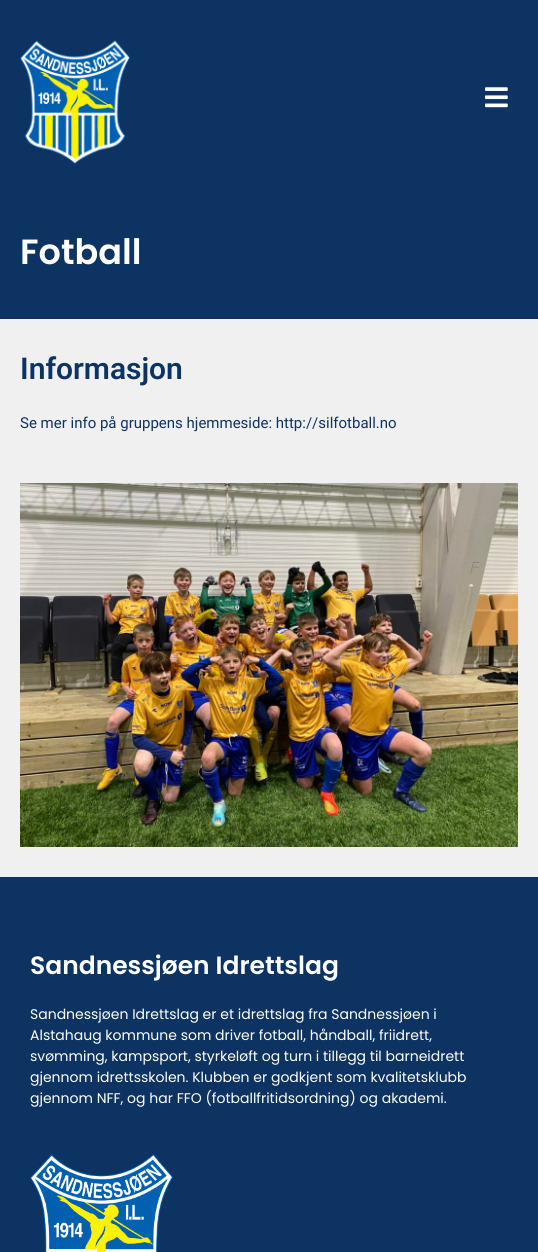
#include <cairo.h>
#include <math.h>
#include <stddef.h>


static void rgb(cairo_t *cr, int r, int g, int b)
{
	cairo_set_source_rgb(cr, r / 255.0, g / 255.0, b / 255.0);
}

static void face(cairo_t *cr, const char *family, double size, int italic, int bold)
{
	cairo_select_font_face(cr, family, italic ? CAIRO_FONT_SLANT_ITALIC : CAIRO_FONT_SLANT_NORMAL,
		bold ? CAIRO_FONT_WEIGHT_BOLD : CAIRO_FONT_WEIGHT_NORMAL);
	cairo_set_font_size(cr, size);
}

static void label(cairo_t *cr, double x, double y, const char *s)
{
	cairo_move_to(cr, x, y);
	cairo_show_text(cr, s);
}

static void rect(cairo_t *cr, double x, double y, double w, double h)
{
	cairo_rectangle(cr, x, y, w, h);
	cairo_fill(cr);
}

static void image(cairo_t *cr, const char *path, double x, double y, double w, double h)
{
	cairo_surface_t *image = cairo_image_surface_create_from_png(path);
	cairo_save(cr);
	cairo_set_source_surface(cr, image, x, y);
	cairo_rectangle(cr, x, y, w, h);
	cairo_fill(cr);
	cairo_restore(cr);
	cairo_surface_destroy(image);
}

static void draw(cairo_t *cr) {
	rgb(cr, 240, 240, 240);
	cairo_paint(cr);
	rgb(cr, 13, 51, 99);
	rect(cr, 0, 0, 538, 319);
	image(cr, "image0.png", 20, 40, 110, 124);
	image(cr, "image1.png", 485, 87, 23, 21);
	face(cr, "Poppins SemiBold", 35, 0, 0);
	rgb(cr, 255, 255, 255);
	label(cr, 20, 264, "Fotball");
	face(cr, "Roboto SemiBold", 30, 0, 0);
	rgb(cr, 13, 51, 99);
	label(cr, 20, 379, "Informasjon");
	face(cr, "Roboto", 15, 0, 0);
	label(cr, 20, 428, "Se mer info på gruppens hjemmeside: http://silfotball.no");
	image(cr, "image2.png", 20, 483, 498, 364);
	rect(cr, 0, 877, 538, 375);
	face(cr, "Poppins SemiBold", 25, 0, 0);
	rgb(cr, 255, 255, 255);
	label(cr, 30, 974, "Sandnessjøen Idrettslag");
	face(cr, "Poppins", 14, 0, 0);
	label(cr, 30, 1019, "Sandnessjøen Idrettslag er et idrettslag fra Sandnessjøen i");
	label(cr, 30, 1040, "Alstahaug kommune som driver fotball, håndball, friidrett,");
	label(cr, 30, 1061, "svømming, kampsport, styrkeløft og turn i tillegg til barneidrett");
	label(cr, 30, 1082, "gjennom idrettsskolen. Klubben er godkjent som kvalitetsklubb");
	label(cr, 30, 1103, "gjennom NFF, og har FFO (fotballfritidsordning) og akademi.");
	image(cr, "image3.png", 30, 1154, 143, 98);
}

int main(void) {
	cairo_surface_t *surface = cairo_image_surface_create(CAIRO_FORMAT_RGB24, 538, 1252);
	cairo_t *cr = cairo_create(surface);
	cairo_font_options_t *options = cairo_font_options_create();
	cairo_font_options_set_hint_metrics(options, CAIRO_HINT_METRICS_OFF);
	cairo_font_options_set_hint_style(options, CAIRO_HINT_STYLE_NONE);
	cairo_set_font_options(cr, options);
	cairo_set_miter_limit(cr, 4);
	draw(cr);
	cairo_surface_write_to_png(surface, "render.png");
	cairo_font_options_destroy(options);
	cairo_destroy(cr);
	cairo_surface_destroy(surface);
	return 0;
}
